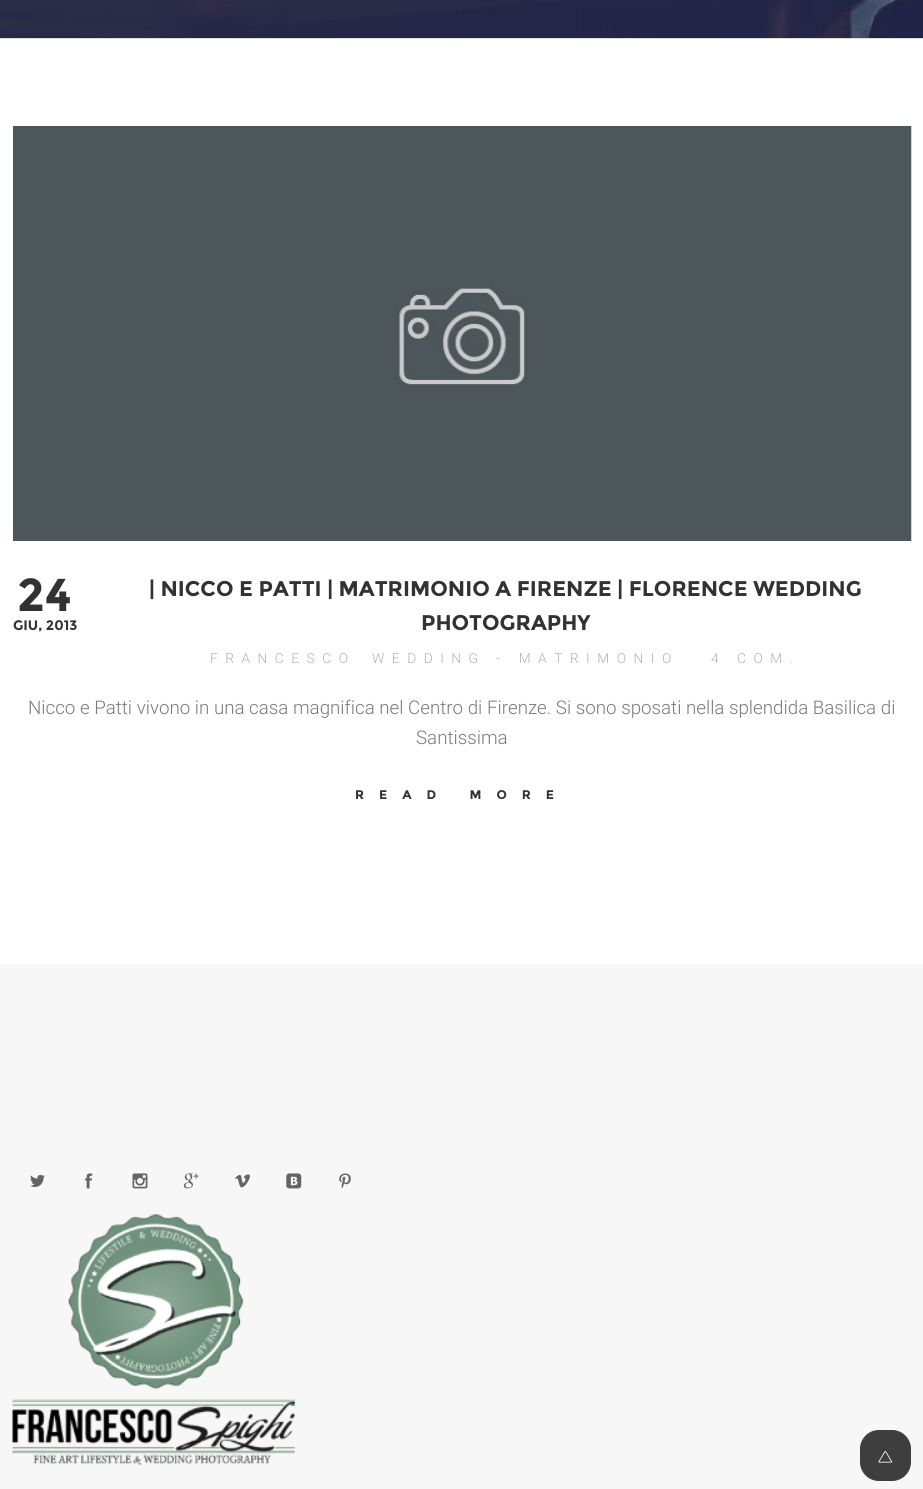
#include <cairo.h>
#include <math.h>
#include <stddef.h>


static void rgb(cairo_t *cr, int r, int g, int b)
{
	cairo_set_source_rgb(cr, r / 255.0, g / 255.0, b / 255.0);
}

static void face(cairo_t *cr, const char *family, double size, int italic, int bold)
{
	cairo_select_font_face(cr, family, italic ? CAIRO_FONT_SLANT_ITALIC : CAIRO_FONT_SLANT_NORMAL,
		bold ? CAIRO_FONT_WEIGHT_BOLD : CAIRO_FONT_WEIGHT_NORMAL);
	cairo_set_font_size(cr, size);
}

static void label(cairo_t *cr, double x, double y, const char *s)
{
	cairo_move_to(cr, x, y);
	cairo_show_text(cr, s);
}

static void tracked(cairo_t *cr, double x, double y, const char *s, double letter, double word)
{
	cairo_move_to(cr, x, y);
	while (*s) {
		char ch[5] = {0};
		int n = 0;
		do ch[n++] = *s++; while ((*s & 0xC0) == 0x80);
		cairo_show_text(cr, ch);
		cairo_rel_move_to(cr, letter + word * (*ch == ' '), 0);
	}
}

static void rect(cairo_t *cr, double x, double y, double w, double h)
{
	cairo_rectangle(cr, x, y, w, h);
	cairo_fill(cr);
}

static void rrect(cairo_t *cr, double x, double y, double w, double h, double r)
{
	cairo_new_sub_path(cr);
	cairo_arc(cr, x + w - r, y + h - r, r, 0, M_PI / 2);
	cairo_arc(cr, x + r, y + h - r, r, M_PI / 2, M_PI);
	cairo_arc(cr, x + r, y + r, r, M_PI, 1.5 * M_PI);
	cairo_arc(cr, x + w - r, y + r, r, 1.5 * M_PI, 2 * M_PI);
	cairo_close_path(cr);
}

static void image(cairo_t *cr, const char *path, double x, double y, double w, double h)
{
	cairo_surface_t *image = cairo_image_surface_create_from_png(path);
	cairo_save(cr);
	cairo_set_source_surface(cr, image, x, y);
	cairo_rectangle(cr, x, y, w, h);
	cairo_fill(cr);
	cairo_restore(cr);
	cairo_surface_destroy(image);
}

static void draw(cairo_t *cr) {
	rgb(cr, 255, 255, 255);
	cairo_paint(cr);
	image(cr, "image0.png", 0, 0, 923, 38);
	rgb(cr, 221, 221, 221);
	rect(cr, 0, 38, 923, 1);
	image(cr, "image1.png", 13, 126, 899, 415);
	face(cr, "Montserrat", 46, 0, 1);
	rgb(cr, 50, 50, 50);
	label(cr, 17, 611, "24");
	face(cr, "Montserrat", 13.75, 0, 1);
	label(cr, 13, 630, "GIU, 2013");
	face(cr, "Montserrat", 21.25, 0, 1);
	label(cr, 149, 596, "| NICCO E PATTI | MATRIMONIO A FIRENZE | FLORENCE WEDDING");
	label(cr, 421, 630, "PHOTOGRAPHY");
	face(cr, "Roboto Light", 13.75, 0, 0);
	rgb(cr, 178, 178, 178);
	tracked(cr, 210, 663, "FRANCESCO", 7.5, 0);
	tracked(cr, 372, 663, "WEDDING - MATRIMONIO", 7.5, 0);
	tracked(cr, 711, 663, "4 COM.", 7.5, 0);
	face(cr, "Roboto Light", 18.75, 0, 0);
	rgb(cr, 122, 122, 122);
	label(cr, 28, 714, "Nicco e Patti vivono in una casa magnifica nel Centro di Firenze. Si sono sposati nella splendida Basilica di");
	label(cr, 416, 744, "Santissima");
	face(cr, "Montserrat", 12.5, 0, 1);
	rgb(cr, 50, 50, 50);
	tracked(cr, 355, 799, "READ MORE", 15, 0);
	rgb(cr, 247, 247, 247);
	rect(cr, 0, 964, 923, 525);
	image(cr, "image2.png", 30, 1174, 15, 13);
	image(cr, "image3.png", 85, 1173, 8, 16);
	image(cr, "image4.png", 132, 1173, 16, 16);
	image(cr, "image5.png", 183, 1173, 16, 16);
	image(cr, "image6.png", 235, 1174, 15, 14);
	image(cr, "image7.png", 286, 1173, 16, 16);
	image(cr, "image8.png", 339, 1173, 12, 16);
	image(cr, "image9.png", 12, 1214, 283, 251);
	rgb(cr, 62, 62, 62);
	rrect(cr, 860.5, 1430.5, 50, 50, 18.5);
	cairo_fill_preserve(cr);
	cairo_set_line_width(cr, 1);
	cairo_stroke(cr);
	image(cr, "image10.png", 878, 1451, 15, 12);
}

int main(void) {
	cairo_surface_t *surface = cairo_image_surface_create(CAIRO_FORMAT_RGB24, 923, 1489);
	cairo_t *cr = cairo_create(surface);
	cairo_font_options_t *options = cairo_font_options_create();
	cairo_font_options_set_hint_metrics(options, CAIRO_HINT_METRICS_OFF);
	cairo_font_options_set_hint_style(options, CAIRO_HINT_STYLE_NONE);
	cairo_set_font_options(cr, options);
	cairo_set_miter_limit(cr, 4);
	draw(cr);
	cairo_surface_write_to_png(surface, "render.png");
	cairo_font_options_destroy(options);
	cairo_destroy(cr);
	cairo_surface_destroy(surface);
	return 0;
}
